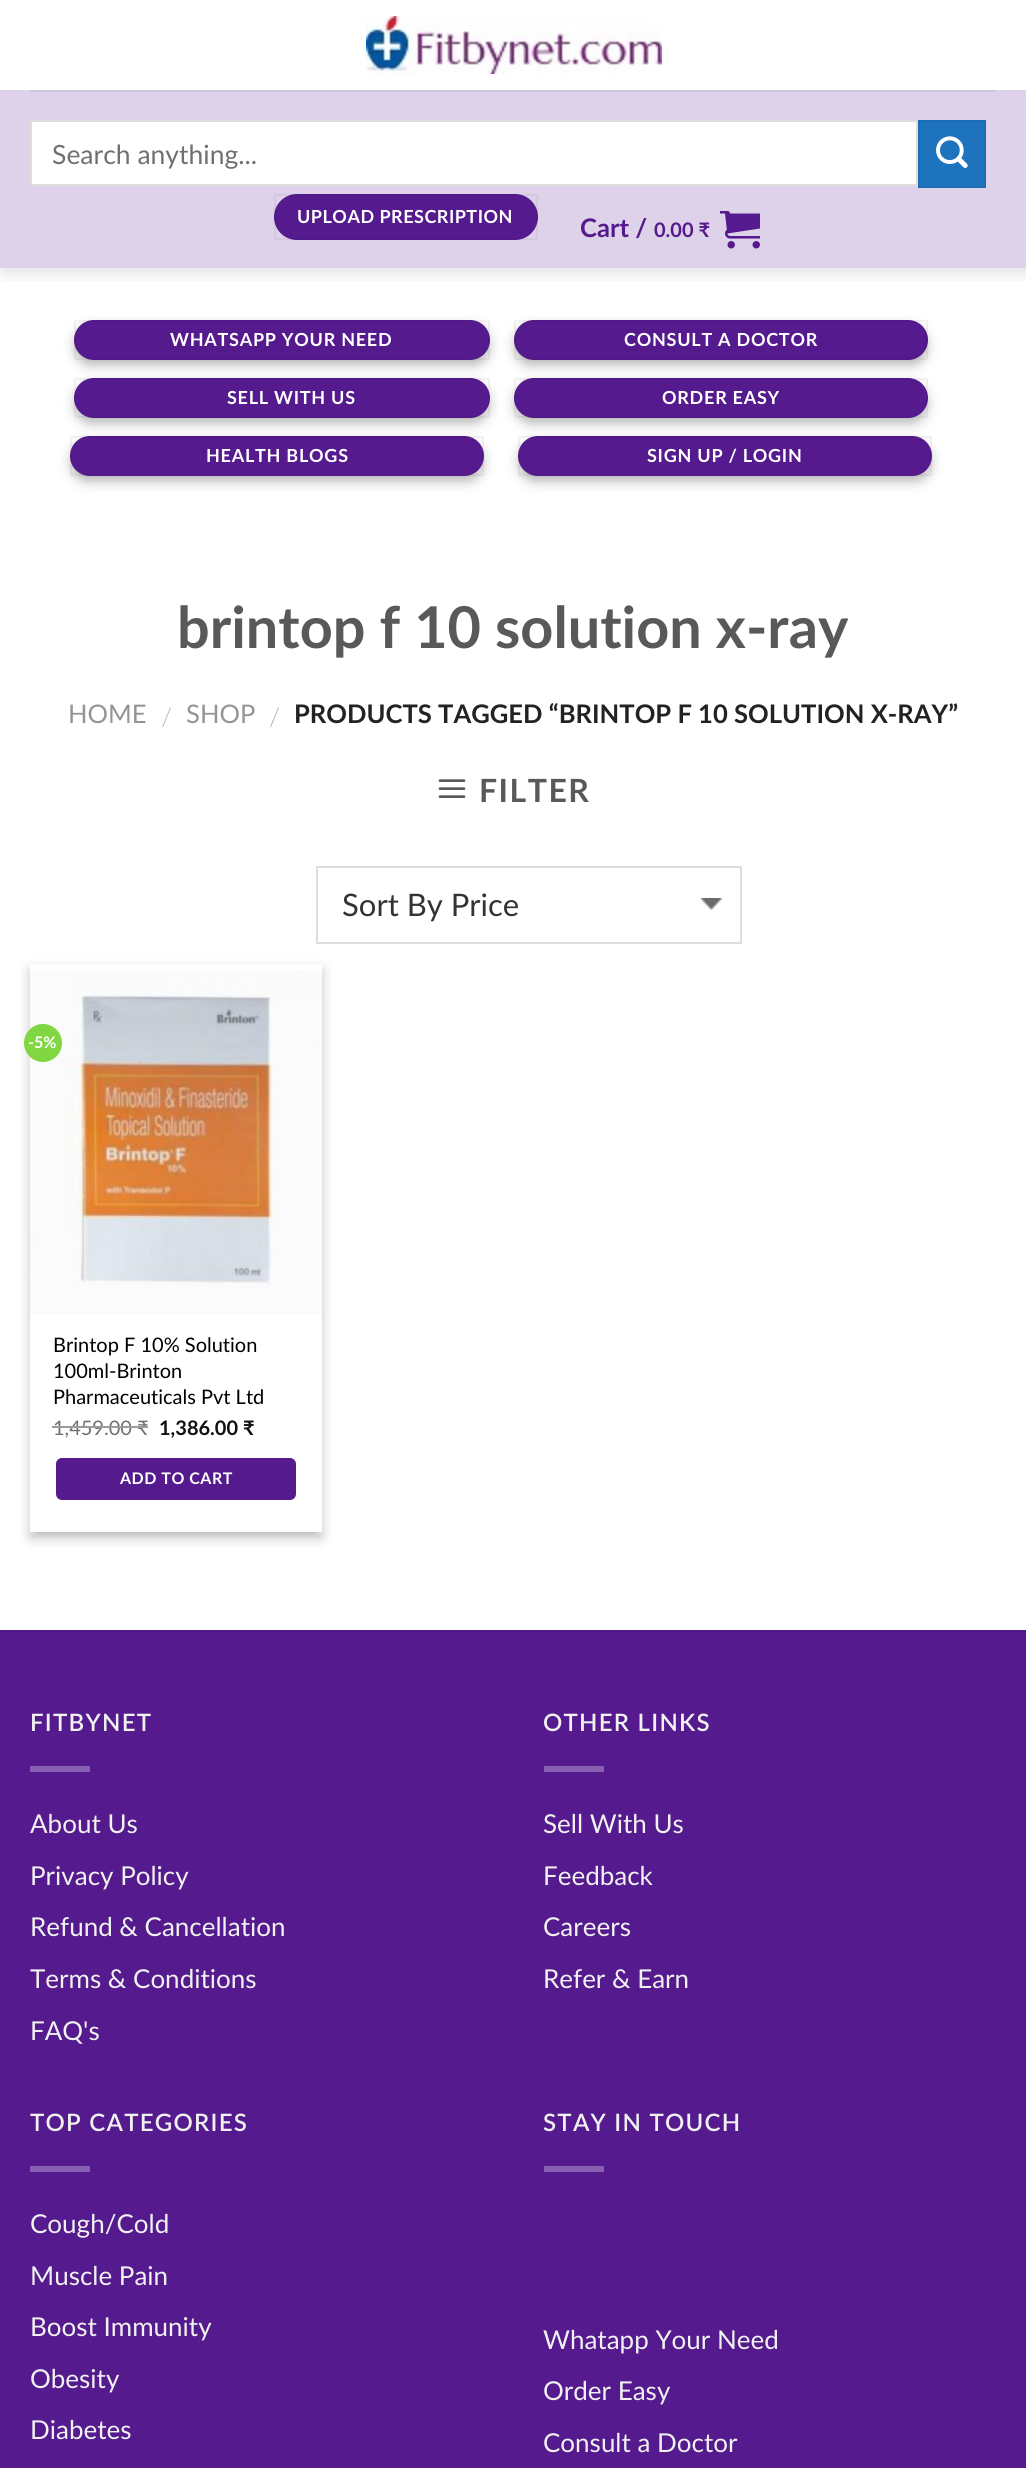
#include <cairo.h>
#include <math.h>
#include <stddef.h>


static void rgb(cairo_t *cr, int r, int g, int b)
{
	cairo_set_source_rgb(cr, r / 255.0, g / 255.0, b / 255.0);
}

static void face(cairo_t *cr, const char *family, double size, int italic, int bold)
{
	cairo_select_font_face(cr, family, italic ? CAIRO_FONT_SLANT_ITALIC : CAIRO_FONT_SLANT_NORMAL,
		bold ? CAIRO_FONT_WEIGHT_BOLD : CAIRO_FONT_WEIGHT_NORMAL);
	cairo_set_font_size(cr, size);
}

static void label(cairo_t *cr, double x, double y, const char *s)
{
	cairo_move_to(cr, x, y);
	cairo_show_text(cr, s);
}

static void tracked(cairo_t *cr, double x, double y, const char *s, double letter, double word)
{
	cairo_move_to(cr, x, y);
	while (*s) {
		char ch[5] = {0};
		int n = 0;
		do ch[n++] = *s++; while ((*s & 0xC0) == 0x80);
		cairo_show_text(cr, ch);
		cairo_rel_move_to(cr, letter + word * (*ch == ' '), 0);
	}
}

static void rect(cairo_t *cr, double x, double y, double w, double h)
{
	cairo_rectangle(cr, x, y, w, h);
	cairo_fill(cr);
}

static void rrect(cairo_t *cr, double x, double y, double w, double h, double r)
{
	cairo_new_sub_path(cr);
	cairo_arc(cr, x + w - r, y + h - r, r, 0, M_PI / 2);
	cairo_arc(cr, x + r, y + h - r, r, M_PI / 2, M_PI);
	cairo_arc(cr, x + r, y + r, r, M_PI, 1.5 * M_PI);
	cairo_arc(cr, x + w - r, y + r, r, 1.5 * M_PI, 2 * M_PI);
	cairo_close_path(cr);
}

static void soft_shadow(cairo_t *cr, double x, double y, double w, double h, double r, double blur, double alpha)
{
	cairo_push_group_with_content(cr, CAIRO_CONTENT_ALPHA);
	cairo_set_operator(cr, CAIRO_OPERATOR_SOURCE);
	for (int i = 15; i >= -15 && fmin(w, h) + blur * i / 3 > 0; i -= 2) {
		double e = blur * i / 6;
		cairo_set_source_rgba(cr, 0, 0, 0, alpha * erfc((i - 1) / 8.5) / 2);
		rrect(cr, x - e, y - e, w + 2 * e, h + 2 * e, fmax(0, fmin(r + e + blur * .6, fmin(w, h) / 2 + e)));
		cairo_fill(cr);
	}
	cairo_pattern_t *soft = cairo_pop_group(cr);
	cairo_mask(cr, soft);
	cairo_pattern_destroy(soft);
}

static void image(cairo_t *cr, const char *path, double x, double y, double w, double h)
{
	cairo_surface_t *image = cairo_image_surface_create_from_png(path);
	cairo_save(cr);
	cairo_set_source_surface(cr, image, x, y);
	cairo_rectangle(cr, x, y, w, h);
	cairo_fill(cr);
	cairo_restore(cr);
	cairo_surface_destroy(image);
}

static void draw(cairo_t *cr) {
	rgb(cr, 255, 255, 255);
	cairo_paint(cr);
	cairo_save(cr);
	cairo_rectangle(cr, 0, 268, 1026, 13);
	cairo_clip(cr);
	rgb(cr, 0, 0, 0);
	soft_shadow(cr, 2, 2, 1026, 268, 0, 10, 0.15);
	cairo_restore(cr);
	image(cr, "image0.png", 366, 16, 296, 58);
	rgb(cr, 221, 210, 233);
	rect(cr, 0, 90, 1026, 178);
	rgb(cr, 208, 198, 219);
	rect(cr, 30, 90, 966, 2);
	rgb(cr, 255, 255, 255);
	cairo_rectangle(cr, 31, 121, 886, 64);
	cairo_fill_preserve(cr);
	rgb(cr, 221, 221, 221);
	cairo_stroke(cr);
	face(cr, "Lato", 26.5, 0, 0);
	rgb(cr, 112, 112, 112);
	label(cr, 52, 164, "Search anything...");
	rgb(cr, 30, 115, 190);
	cairo_rectangle(cr, 919, 121, 66, 66);
	cairo_fill_preserve(cr);
	rgb(cr, 29, 109, 181);
	cairo_stroke(cr);
	image(cr, "image1.png", 936, 136, 32, 32);
	rgb(cr, 84, 26, 142);
	rrect(cr, 274, 194, 264, 46, 23);
	cairo_fill(cr);
	cairo_rectangle(cr, 275, 195, 262, 44);
	cairo_set_source_rgba(cr, 0, 0, 0, 0.05);
	cairo_stroke(cr);
	face(cr, "Lato", 18, 0, 1);
	rgb(cr, 255, 255, 255);
	tracked(cr, 297, 223, "UPLOAD PRESCRIPTION", 0.5, 0);
	face(cr, "Lato", 25.6, 0, 1);
	rgb(cr, 84, 26, 142);
	label(cr, 580, 237, "Cart /");
	face(cr, "Lato", 20, 0, 1);
	label(cr, 654, 237, "0.00 ₹");
	image(cr, "image2.png", 720, 211, 40, 38);
	rgb(cr, 0, 0, 0);
	soft_shadow(cr, 74, 326, 416, 40, 20, 6, 0.23);
	soft_shadow(cr, 82, 334, 400, 24, 12, 6, 0.16);
	rgb(cr, 84, 26, 142);
	rrect(cr, 74, 320, 416, 40, 20);
	cairo_fill(cr);
	cairo_rectangle(cr, 75, 321, 414, 38);
	cairo_set_source_rgba(cr, 0, 0, 0, 0.05);
	cairo_stroke(cr);
	face(cr, "Lato", 18, 0, 1);
	rgb(cr, 255, 255, 255);
	tracked(cr, 170, 346, "WHATSAPP YOUR NEED", 0.75, 0);
	rgb(cr, 0, 0, 0);
	soft_shadow(cr, 514, 326, 414, 40, 20, 6, 0.23);
	soft_shadow(cr, 522, 334, 398, 24, 12, 6, 0.16);
	rgb(cr, 84, 26, 142);
	rrect(cr, 514, 320, 414, 40, 20);
	cairo_fill(cr);
	cairo_rectangle(cr, 515, 321, 412, 38);
	cairo_set_source_rgba(cr, 0, 0, 0, 0.05);
	cairo_stroke(cr);
	rgb(cr, 255, 255, 255);
	tracked(cr, 624, 346, "CONSULT A DOCTOR", 0.75, 0);
	rgb(cr, 0, 0, 0);
	soft_shadow(cr, 74, 384, 416, 40, 20, 6, 0.23);
	soft_shadow(cr, 82, 392, 400, 24, 12, 6, 0.16);
	rgb(cr, 84, 26, 142);
	rrect(cr, 74, 378, 416, 40, 20);
	cairo_fill(cr);
	cairo_rectangle(cr, 75, 379, 414, 38);
	cairo_set_source_rgba(cr, 0, 0, 0, 0.05);
	cairo_stroke(cr);
	rgb(cr, 255, 255, 255);
	tracked(cr, 227, 404, "SELL WITH US", 0.75, 0);
	rgb(cr, 0, 0, 0);
	soft_shadow(cr, 514, 384, 414, 40, 20, 6, 0.23);
	soft_shadow(cr, 522, 392, 398, 24, 12, 6, 0.16);
	rgb(cr, 84, 26, 142);
	rrect(cr, 514, 378, 414, 40, 20);
	cairo_fill(cr);
	cairo_rectangle(cr, 515, 379, 412, 38);
	cairo_set_source_rgba(cr, 0, 0, 0, 0.05);
	cairo_stroke(cr);
	rgb(cr, 255, 255, 255);
	tracked(cr, 662, 404, "ORDER EASY", 0.75, 0);
	rgb(cr, 0, 0, 0);
	soft_shadow(cr, 70, 442, 414, 40, 20, 6, 0.23);
	soft_shadow(cr, 78, 450, 398, 24, 12, 6, 0.16);
	rgb(cr, 84, 26, 142);
	rrect(cr, 70, 436, 414, 40, 20);
	cairo_fill(cr);
	cairo_rectangle(cr, 71, 437, 412, 38);
	cairo_set_source_rgba(cr, 0, 0, 0, 0.05);
	cairo_stroke(cr);
	rgb(cr, 255, 255, 255);
	tracked(cr, 206, 462, "HEALTH BLOGS", 0.75, 0);
	rgb(cr, 0, 0, 0);
	soft_shadow(cr, 518, 442, 414, 40, 20, 6, 0.23);
	soft_shadow(cr, 526, 450, 398, 24, 12, 6, 0.16);
	rgb(cr, 84, 26, 142);
	rrect(cr, 518, 436, 414, 40, 20);
	cairo_fill(cr);
	cairo_rectangle(cr, 519, 437, 412, 38);
	cairo_set_source_rgba(cr, 0, 0, 0, 0.05);
	cairo_stroke(cr);
	rgb(cr, 255, 255, 255);
	tracked(cr, 647, 462, "SIGN UP / LOGIN", 0.75, 0);
	face(cr, "Lato", 57.6, 0, 1);
	rgb(cr, 89, 89, 89);
	label(cr, 177, 648, "brintop f 10 solution x-ray");
	face(cr, "Lato", 25.6, 0, 0);
	rgb(cr, 148, 148, 148);
	label(cr, 68, 723, "HOME");
	face(cr, "Lato Light", 25.6, 0, 0);
	rgb(cr, 178, 178, 178);
	label(cr, 161, 726, "/");
	face(cr, "Lato", 25.6, 0, 0);
	rgb(cr, 148, 148, 148);
	label(cr, 186, 723, "SHOP");
	face(cr, "Lato Light", 25.6, 0, 0);
	rgb(cr, 178, 178, 178);
	label(cr, 269, 726, "/");
	face(cr, "Lato", 25.6, 0, 1);
	rgb(cr, 34, 34, 34);
	label(cr, 294, 723, "PRODUCTS TAGGED “BRINTOP F 10 SOLUTION X-RAY”");
	image(cr, "image3.png", 438, 779, 28, 19);
	face(cr, "Lato", 32, 0, 1);
	rgb(cr, 89, 89, 89);
	tracked(cr, 479, 802, "FILTER", 1.5, 0);
	image(cr, "image4.png", 700, 898, 23, 12);
	cairo_rectangle(cr, 317, 867, 424, 76);
	rgb(cr, 221, 221, 221);
	cairo_stroke(cr);
	face(cr, "Lato", 31, 0, 0);
	rgb(cr, 51, 51, 51);
	label(cr, 342, 916, "Sort By Price");
	cairo_save(cr);
	cairo_set_fill_rule(cr, CAIRO_FILL_RULE_EVEN_ODD);
	cairo_new_path(cr);
	cairo_move_to(cr, 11, 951);
	cairo_line_to(cr, 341, 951);
	cairo_line_to(cr, 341, 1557);
	cairo_line_to(cr, 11, 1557);
	cairo_close_path(cr);
	cairo_move_to(cr, 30, 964);
	cairo_line_to(cr, 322, 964);
	cairo_line_to(cr, 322, 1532);
	cairo_line_to(cr, 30, 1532);
	cairo_close_path(cr);
	cairo_clip(cr);
	rgb(cr, 0, 0, 0);
	soft_shadow(cr, 30, 970, 292, 568, 0, 6, 0.23);
	cairo_restore(cr);
	cairo_save(cr);
	cairo_rectangle(cr, 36, 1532, 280, 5);
	cairo_clip(cr);
	rgb(cr, 0, 0, 0);
	soft_shadow(cr, 38, 978, 276, 552, 0, 6, 0.16);
	cairo_restore(cr);
	image(cr, "image5.png", 30, 971, 292, 343);
	rgb(cr, 129, 215, 66);
	cairo_arc(cr, 43, 1043, 19, 0, 2 * M_PI);
	cairo_fill(cr);
	face(cr, "Lato", 16, 0, 1);
	rgb(cr, 255, 255, 255);
	label(cr, 28, 1048, "-5%");
	face(cr, "Lato", 20, 0, 0);
	rgb(cr, 0, 0, 0);
	label(cr, 53, 1352, "Brintop F 10% Solution");
	label(cr, 53, 1378, "100ml-Brinton");
	label(cr, 53, 1404, "Pharmaceuticals Pvt Ltd");
	rgb(cr, 112, 112, 112);
	label(cr, 53, 1435, "1,459.00 ₹");
	rgb(cr, 155, 155, 155);
	rect(cr, 52, 1426, 96, 2);
	face(cr, "Lato", 20, 0, 1);
	rgb(cr, 17, 17, 17);
	label(cr, 159, 1435, "1,386.00 ₹");
	rgb(cr, 84, 26, 142);
	rrect(cr, 54, 1456, 244, 46, 8);
	cairo_fill_preserve(cr);
	rgb(cr, 255, 255, 255);
	cairo_set_line_width(cr, 4);
	cairo_stroke(cr);
	face(cr, "Lato", 16, 0, 1);
	tracked(cr, 120, 1484, "ADD TO CART", 0.5, 0);
	rgb(cr, 84, 26, 142);
	rect(cr, 0, 1632, 1026, 836);
	rgb(cr, 80, 25, 135);
	rect(cr, 0, 1630, 1026, 2);
	face(cr, "Lato SemiBold", 24, 0, 0);
	rgb(cr, 241, 241, 241);
	tracked(cr, 30, 1731, "FITBYNET", 1.25, 0);
	rgb(cr, 135, 95, 176);
	rect(cr, 30, 1766, 60, 6);
	face(cr, "Lato", 26, 0, 0);
	rgb(cr, 241, 241, 241);
	label(cr, 30, 1833, "About Us");
	label(cr, 30, 1885, "Privacy Policy");
	label(cr, 30, 1936, "Refund & Cancellation");
	label(cr, 30, 1988, "Terms & Conditions");
	label(cr, 30, 2040, "FAQ's");
	face(cr, "Lato SemiBold", 24, 0, 0);
	tracked(cr, 543, 1731, "OTHER LINKS", 1.25, 0);
	rgb(cr, 135, 95, 176);
	rect(cr, 544, 1766, 60, 6);
	face(cr, "Lato", 26, 0, 0);
	rgb(cr, 241, 241, 241);
	label(cr, 543, 1833, "Sell With Us");
	label(cr, 543, 1885, "Feedback");
	label(cr, 543, 1936, "Careers");
	label(cr, 543, 1988, "Refer & Earn");
	face(cr, "Lato SemiBold", 24, 0, 0);
	tracked(cr, 30, 2131, "TOP CATEGORIES", 1.25, 0);
	rgb(cr, 135, 95, 176);
	rect(cr, 30, 2166, 60, 6);
	face(cr, "Lato", 26, 0, 0);
	rgb(cr, 241, 241, 241);
	label(cr, 30, 2233, "Cough/Cold");
	label(cr, 30, 2285, "Muscle Pain");
	label(cr, 30, 2336, "Boost Immunity");
	label(cr, 30, 2388, "Obesity");
	label(cr, 30, 2439, "Diabetes");
	face(cr, "Lato SemiBold", 24, 0, 0);
	tracked(cr, 543, 2131, "STAY IN TOUCH", 1.25, 0);
	rgb(cr, 135, 95, 176);
	rect(cr, 544, 2166, 60, 6);
	face(cr, "Lato", 26, 0, 0);
	rgb(cr, 241, 241, 241);
	label(cr, 543, 2349, "Whatapp Your Need");
	label(cr, 543, 2400, "Order Easy");
	label(cr, 543, 2452, "Consult a Doctor");
}

int main(void) {
	cairo_surface_t *surface = cairo_image_surface_create(CAIRO_FORMAT_RGB24, 1026, 2468);
	cairo_t *cr = cairo_create(surface);
	cairo_font_options_t *options = cairo_font_options_create();
	cairo_font_options_set_hint_metrics(options, CAIRO_HINT_METRICS_OFF);
	cairo_font_options_set_hint_style(options, CAIRO_HINT_STYLE_NONE);
	cairo_set_font_options(cr, options);
	cairo_set_miter_limit(cr, 4);
	draw(cr);
	cairo_surface_write_to_png(surface, "render.png");
	cairo_font_options_destroy(options);
	cairo_destroy(cr);
	cairo_surface_destroy(surface);
	return 0;
}
